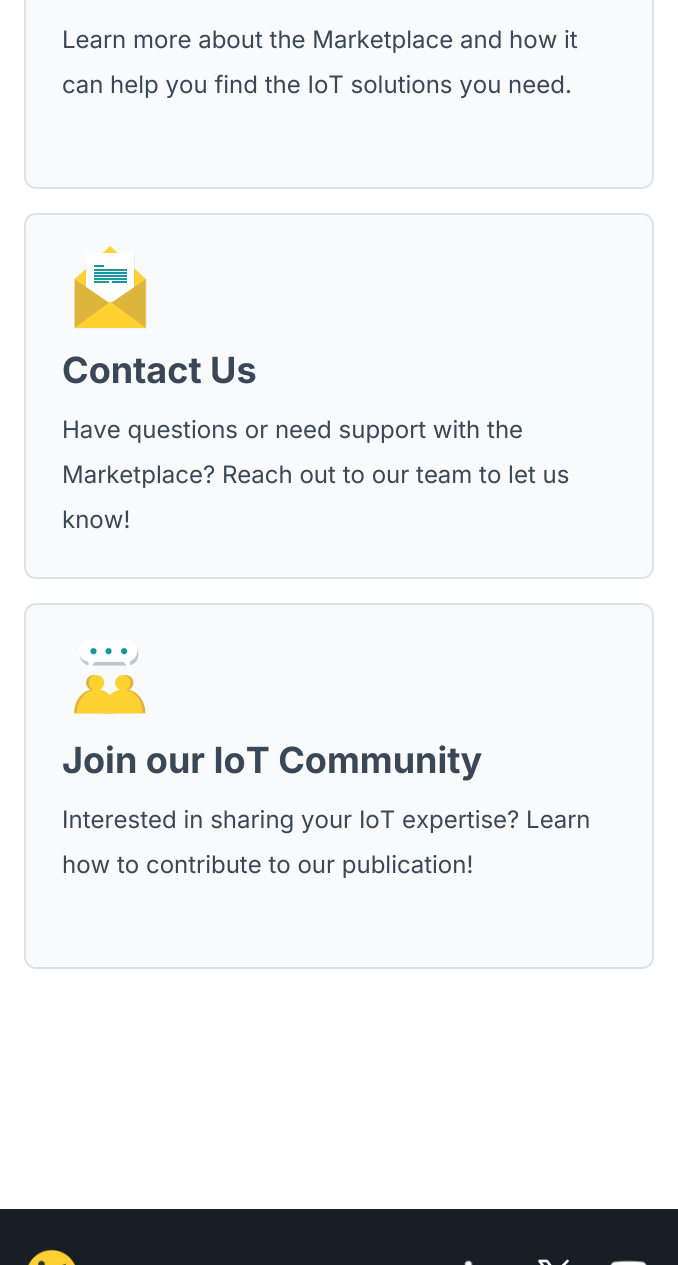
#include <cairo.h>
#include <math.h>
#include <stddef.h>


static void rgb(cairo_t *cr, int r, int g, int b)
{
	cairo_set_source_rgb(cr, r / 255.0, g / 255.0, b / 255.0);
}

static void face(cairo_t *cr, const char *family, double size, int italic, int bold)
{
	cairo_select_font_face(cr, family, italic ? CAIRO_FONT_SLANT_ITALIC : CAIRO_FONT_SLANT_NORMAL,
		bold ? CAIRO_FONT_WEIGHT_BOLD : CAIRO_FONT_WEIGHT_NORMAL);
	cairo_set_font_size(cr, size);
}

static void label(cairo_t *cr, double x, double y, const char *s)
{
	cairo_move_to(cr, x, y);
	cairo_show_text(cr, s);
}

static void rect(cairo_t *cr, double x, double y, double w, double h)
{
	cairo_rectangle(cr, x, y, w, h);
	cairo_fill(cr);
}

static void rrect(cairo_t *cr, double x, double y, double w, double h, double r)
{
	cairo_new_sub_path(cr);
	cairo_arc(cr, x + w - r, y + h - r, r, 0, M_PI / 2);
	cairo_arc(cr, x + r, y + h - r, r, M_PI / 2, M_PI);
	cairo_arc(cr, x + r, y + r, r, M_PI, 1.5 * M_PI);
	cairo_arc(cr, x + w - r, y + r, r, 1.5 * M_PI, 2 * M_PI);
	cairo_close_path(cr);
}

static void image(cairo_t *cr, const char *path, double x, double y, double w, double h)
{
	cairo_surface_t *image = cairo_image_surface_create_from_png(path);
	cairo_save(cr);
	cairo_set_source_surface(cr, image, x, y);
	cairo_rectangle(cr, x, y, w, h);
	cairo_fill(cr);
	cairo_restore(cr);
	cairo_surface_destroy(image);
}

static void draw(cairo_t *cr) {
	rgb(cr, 255, 255, 255);
	cairo_paint(cr);
	rgb(cr, 249, 250, 251);
	rrect(cr, 25, -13, 628, 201, 11);
	cairo_fill_preserve(cr);
	rgb(cr, 222, 226, 230);
	cairo_stroke(cr);
	face(cr, "Inter", 24, 0, 0);
	rgb(cr, 57, 71, 86);
	label(cr, 62, 48, "Learn more about the Marketplace and how it");
	label(cr, 62, 93, "can help you find the IoT solutions you need.");
	rgb(cr, 249, 250, 251);
	rrect(cr, 25, 214, 628, 364, 11);
	cairo_fill_preserve(cr);
	rgb(cr, 222, 226, 230);
	cairo_stroke(cr);
	image(cr, "image0.png", 74, 245, 73, 84);
	face(cr, "Inter", 36, 0, 1);
	rgb(cr, 57, 71, 86);
	label(cr, 62, 383, "Contact Us");
	face(cr, "Inter", 24, 0, 0);
	label(cr, 62, 438, "Have questions or need support with the");
	label(cr, 62, 483, "Marketplace? Reach out to our team to let us");
	label(cr, 62, 528, "know!");
	rgb(cr, 249, 250, 251);
	rrect(cr, 25, 604, 628, 364, 11);
	cairo_fill_preserve(cr);
	rgb(cr, 222, 226, 230);
	cairo_stroke(cr);
	image(cr, "image1.png", 74, 640, 72, 74);
	face(cr, "Inter", 36, 0, 1);
	rgb(cr, 57, 71, 86);
	label(cr, 62, 773, "Join our IoT Community");
	face(cr, "Inter", 24, 0, 0);
	label(cr, 62, 828, "Interested in sharing your IoT expertise? Learn");
	label(cr, 62, 873, "how to contribute to our publication!");
	rgb(cr, 24, 30, 37);
	rect(cr, 0, 1209, 678, 56);
	image(cr, "image2.png", 28, 1249, 47, 16);
	image(cr, "image3.png", 464, 1260, 9, 5);
	cairo_new_path(cr);
	cairo_move_to(cr, 539.5, 1261);
	cairo_line_to(cr, 560, 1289);
	cairo_line_to(cr, 567.5, 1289);
	cairo_line_to(cr, 547, 1261);
	cairo_close_path(cr);
	cairo_move_to(cr, 539.5, 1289);
	cairo_line_to(cr, 551.5, 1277);
	cairo_move_to(cr, 555.5, 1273);
	cairo_line_to(cr, 567.5, 1261);
	rgb(cr, 255, 255, 255);
	cairo_set_line_width(cr, 2.6);
	cairo_set_line_cap(cr, CAIRO_LINE_CAP_ROUND);
	cairo_set_line_join(cr, CAIRO_LINE_JOIN_ROUND);
	cairo_stroke(cr);
	image(cr, "image4.png", 610, 1260, 37, 5);
}

int main(void) {
	cairo_surface_t *surface = cairo_image_surface_create(CAIRO_FORMAT_RGB24, 678, 1265);
	cairo_t *cr = cairo_create(surface);
	cairo_font_options_t *options = cairo_font_options_create();
	cairo_font_options_set_hint_metrics(options, CAIRO_HINT_METRICS_OFF);
	cairo_font_options_set_hint_style(options, CAIRO_HINT_STYLE_NONE);
	cairo_set_font_options(cr, options);
	cairo_set_miter_limit(cr, 4);
	draw(cr);
	cairo_surface_write_to_png(surface, "render.png");
	cairo_font_options_destroy(options);
	cairo_destroy(cr);
	cairo_surface_destroy(surface);
	return 0;
}
